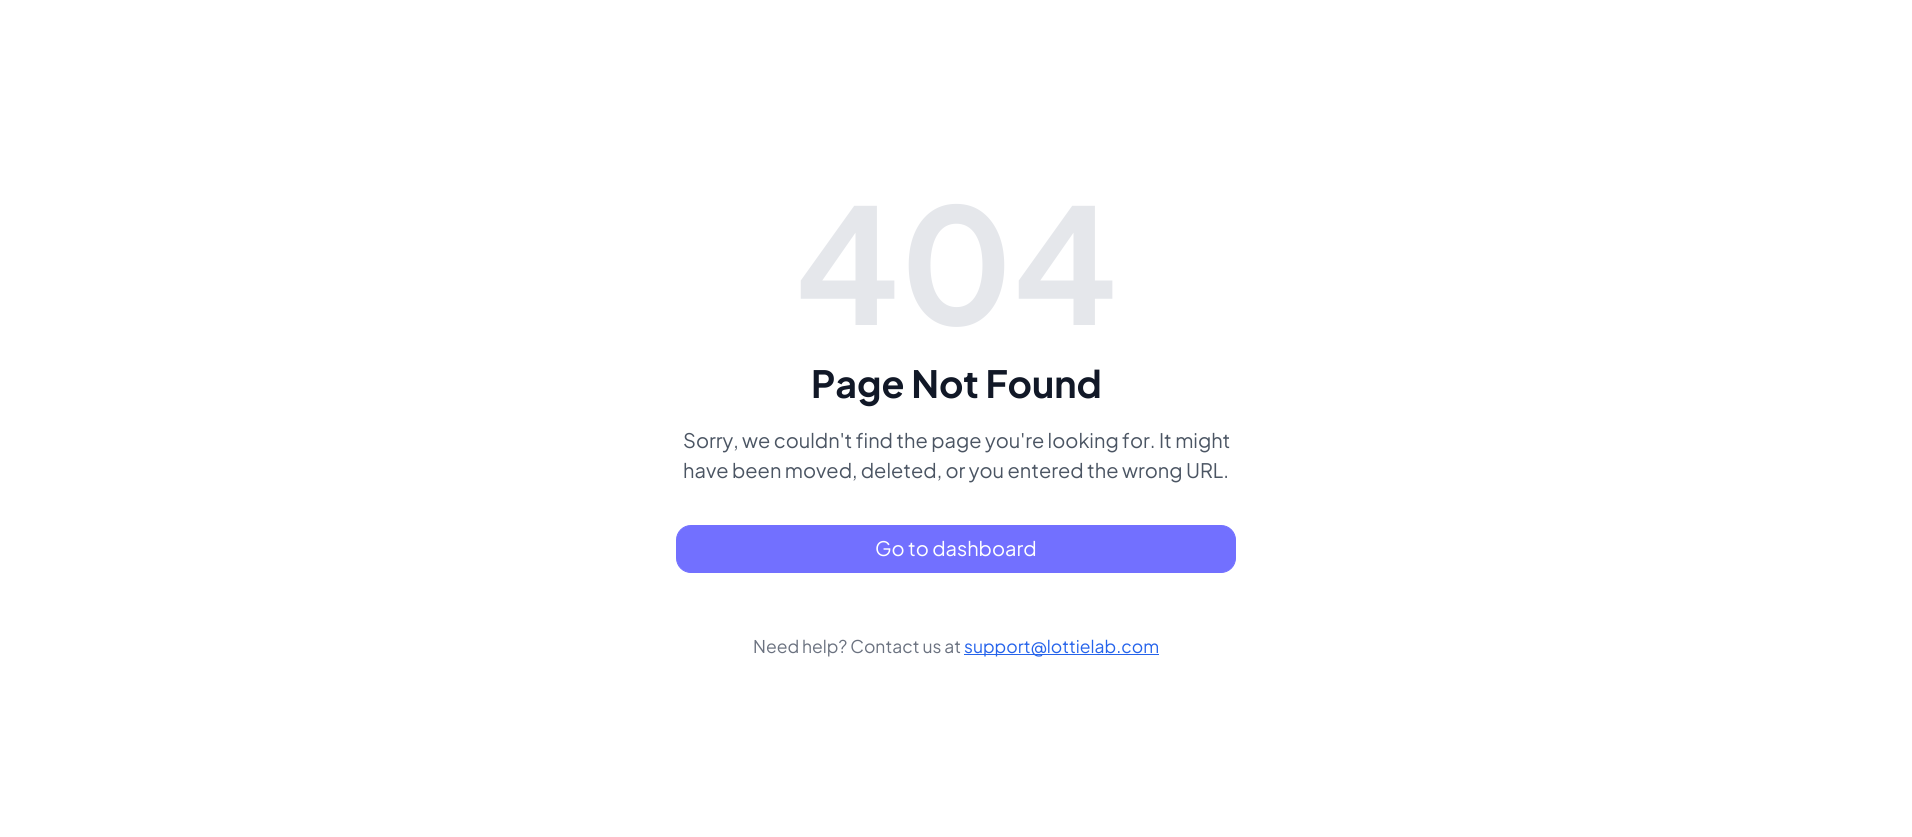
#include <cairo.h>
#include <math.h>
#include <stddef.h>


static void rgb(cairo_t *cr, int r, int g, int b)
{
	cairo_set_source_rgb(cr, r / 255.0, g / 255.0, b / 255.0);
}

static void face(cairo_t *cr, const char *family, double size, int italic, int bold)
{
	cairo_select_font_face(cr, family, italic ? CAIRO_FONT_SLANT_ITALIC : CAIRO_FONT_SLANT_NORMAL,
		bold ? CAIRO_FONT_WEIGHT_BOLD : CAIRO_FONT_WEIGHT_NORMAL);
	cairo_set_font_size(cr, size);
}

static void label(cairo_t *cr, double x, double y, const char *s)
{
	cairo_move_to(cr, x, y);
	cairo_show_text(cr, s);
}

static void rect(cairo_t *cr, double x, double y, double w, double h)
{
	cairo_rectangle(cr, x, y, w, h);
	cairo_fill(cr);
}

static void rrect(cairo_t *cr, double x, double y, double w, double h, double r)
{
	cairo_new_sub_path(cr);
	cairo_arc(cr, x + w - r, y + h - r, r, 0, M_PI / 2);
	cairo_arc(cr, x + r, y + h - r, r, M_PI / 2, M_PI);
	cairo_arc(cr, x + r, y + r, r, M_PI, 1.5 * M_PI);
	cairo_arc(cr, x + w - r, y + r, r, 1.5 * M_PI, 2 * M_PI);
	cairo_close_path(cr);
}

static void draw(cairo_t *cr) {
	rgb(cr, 255, 255, 255);
	cairo_paint(cr);
	face(cr, "Plus Jakarta Sans", 160, 0, 1);
	rgb(cr, 229, 231, 235);
	label(cr, 795, 325, "404");
	face(cr, "Plus Jakarta Sans", 37.5, 0, 1);
	rgb(cr, 17, 24, 39);
	label(cr, 811, 398, "Page Not Found");
	face(cr, "Plus Jakarta Sans", 20, 0, 0);
	rgb(cr, 75, 85, 99);
	label(cr, 683, 448, "Sorry, we couldn't find the page you're looking for. It might");
	label(cr, 683, 478, "have been moved, deleted, or you entered the wrong URL.");
	rgb(cr, 114, 112, 255);
	rrect(cr, 676.5, 525.5, 559, 47, 14.5);
	cairo_fill_preserve(cr);
	cairo_set_line_width(cr, 1);
	cairo_stroke(cr);
	rgb(cr, 255, 255, 255);
	label(cr, 875, 556, "Go to dashboard");
	face(cr, "Plus Jakarta Sans", 17.5, 0, 0);
	rgb(cr, 107, 114, 128);
	label(cr, 753, 653, "Need help? Contact us at");
	rgb(cr, 37, 99, 235);
	rect(cr, 964, 654, 195, 1);
	label(cr, 964, 653, "support@lottielab.com");
}

int main(void) {
	cairo_surface_t *surface = cairo_image_surface_create(CAIRO_FORMAT_RGB24, 1912, 837);
	cairo_t *cr = cairo_create(surface);
	cairo_font_options_t *options = cairo_font_options_create();
	cairo_font_options_set_hint_metrics(options, CAIRO_HINT_METRICS_OFF);
	cairo_font_options_set_hint_style(options, CAIRO_HINT_STYLE_NONE);
	cairo_set_font_options(cr, options);
	cairo_set_miter_limit(cr, 4);
	draw(cr);
	cairo_surface_write_to_png(surface, "render.png");
	cairo_font_options_destroy(options);
	cairo_destroy(cr);
	cairo_surface_destroy(surface);
	return 0;
}
